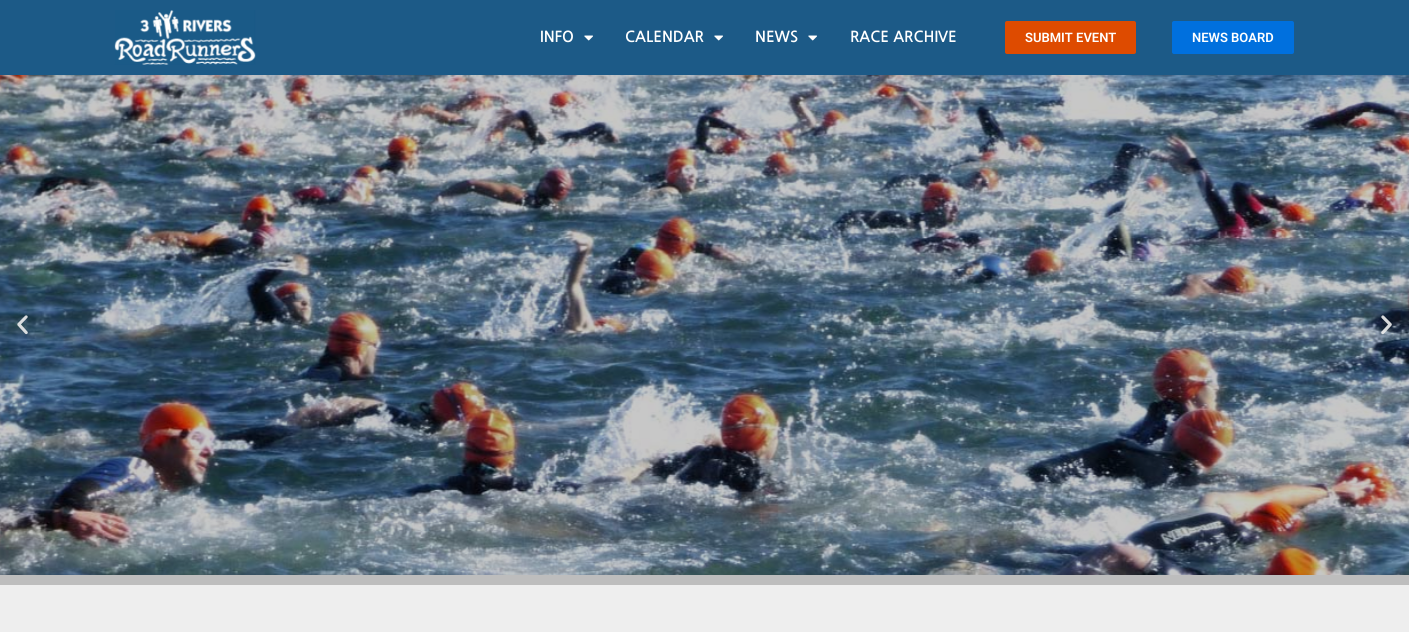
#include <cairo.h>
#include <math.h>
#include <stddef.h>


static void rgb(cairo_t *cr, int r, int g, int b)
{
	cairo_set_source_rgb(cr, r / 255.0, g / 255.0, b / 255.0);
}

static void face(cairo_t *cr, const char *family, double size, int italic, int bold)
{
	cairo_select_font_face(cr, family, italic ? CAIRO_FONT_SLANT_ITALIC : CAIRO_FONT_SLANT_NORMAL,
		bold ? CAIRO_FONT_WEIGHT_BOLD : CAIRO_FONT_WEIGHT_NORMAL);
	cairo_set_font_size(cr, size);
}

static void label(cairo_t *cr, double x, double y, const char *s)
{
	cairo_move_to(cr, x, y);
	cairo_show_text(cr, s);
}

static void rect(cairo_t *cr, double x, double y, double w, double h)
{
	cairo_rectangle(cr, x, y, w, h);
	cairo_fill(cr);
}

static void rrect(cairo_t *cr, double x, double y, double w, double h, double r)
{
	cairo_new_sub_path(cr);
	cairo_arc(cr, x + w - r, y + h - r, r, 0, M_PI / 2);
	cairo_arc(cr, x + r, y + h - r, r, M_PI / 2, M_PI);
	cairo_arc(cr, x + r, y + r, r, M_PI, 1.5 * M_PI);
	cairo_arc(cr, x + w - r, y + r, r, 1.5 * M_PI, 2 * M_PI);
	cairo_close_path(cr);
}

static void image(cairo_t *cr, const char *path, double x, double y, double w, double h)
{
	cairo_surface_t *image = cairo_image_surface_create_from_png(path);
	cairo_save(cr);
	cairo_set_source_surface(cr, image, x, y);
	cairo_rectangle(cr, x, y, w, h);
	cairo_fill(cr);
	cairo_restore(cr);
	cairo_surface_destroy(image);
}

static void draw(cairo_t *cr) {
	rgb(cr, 189, 189, 189);
	cairo_paint(cr);
	rgb(cr, 28, 90, 135);
	rect(cr, 0, 0, 1409, 75);
	image(cr, "image0.png", 114, 10, 142, 55);
	face(cr, "NanumGothic", 15, 0, 1);
	rgb(cr, 255, 255, 255);
	label(cr, 540, 42, "INFO");
	image(cr, "image1.png", 584, 35, 9, 6);
	label(cr, 625, 42, "CALENDAR");
	image(cr, "image1.png", 714, 35, 9, 6);
	label(cr, 755, 42, "NEWS");
	image(cr, "image1.png", 808, 35, 9, 6);
	label(cr, 850, 42, "RACE ARCHIVE");
	rgb(cr, 222, 75, 0);
	rrect(cr, 1005, 21, 131, 33, 2);
	cairo_fill(cr);
	face(cr, "Roboto SemiBold", 13, 0, 0);
	rgb(cr, 255, 255, 255);
	label(cr, 1025, 42, "SUBMIT EVENT");
	rgb(cr, 0, 112, 222);
	rrect(cr, 1172, 21, 122, 33, 2);
	cairo_fill(cr);
	rgb(cr, 255, 255, 255);
	label(cr, 1192, 42, "NEWS BOARD");
	image(cr, "image2.png", 0, 75, 1409, 500);
	image(cr, "image3.png", 17, 315, 11, 20);
	image(cr, "image4.png", 1381, 315, 11, 20);
	rgb(cr, 238, 238, 238);
	rect(cr, 0, 585, 1409, 47);
}

int main(void) {
	cairo_surface_t *surface = cairo_image_surface_create(CAIRO_FORMAT_RGB24, 1409, 632);
	cairo_t *cr = cairo_create(surface);
	cairo_font_options_t *options = cairo_font_options_create();
	cairo_font_options_set_hint_metrics(options, CAIRO_HINT_METRICS_OFF);
	cairo_font_options_set_hint_style(options, CAIRO_HINT_STYLE_NONE);
	cairo_set_font_options(cr, options);
	cairo_set_miter_limit(cr, 4);
	draw(cr);
	cairo_surface_write_to_png(surface, "render.png");
	cairo_font_options_destroy(options);
	cairo_destroy(cr);
	cairo_surface_destroy(surface);
	return 0;
}
